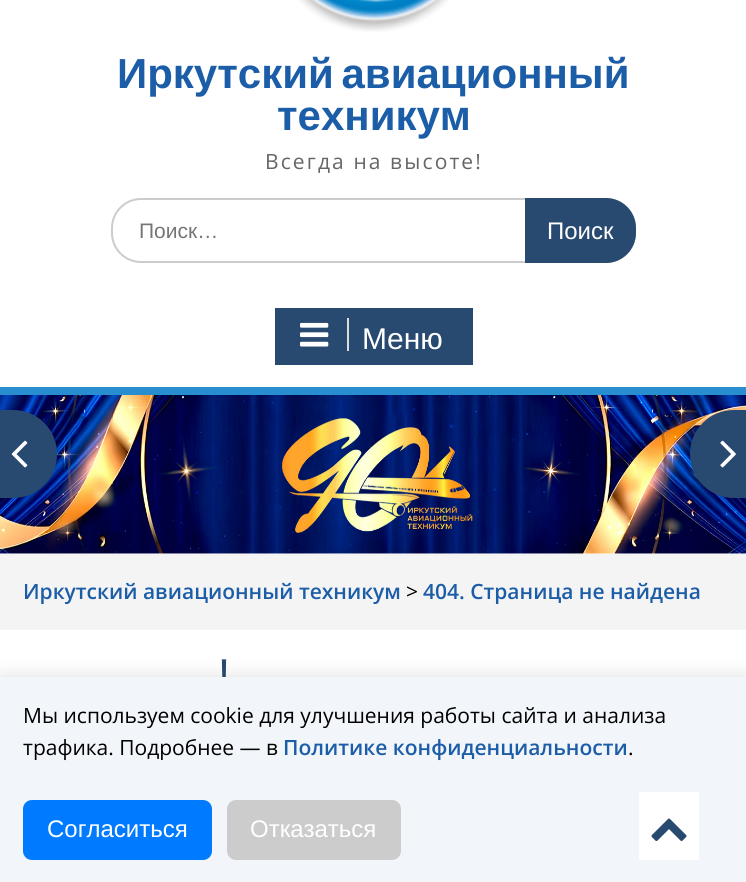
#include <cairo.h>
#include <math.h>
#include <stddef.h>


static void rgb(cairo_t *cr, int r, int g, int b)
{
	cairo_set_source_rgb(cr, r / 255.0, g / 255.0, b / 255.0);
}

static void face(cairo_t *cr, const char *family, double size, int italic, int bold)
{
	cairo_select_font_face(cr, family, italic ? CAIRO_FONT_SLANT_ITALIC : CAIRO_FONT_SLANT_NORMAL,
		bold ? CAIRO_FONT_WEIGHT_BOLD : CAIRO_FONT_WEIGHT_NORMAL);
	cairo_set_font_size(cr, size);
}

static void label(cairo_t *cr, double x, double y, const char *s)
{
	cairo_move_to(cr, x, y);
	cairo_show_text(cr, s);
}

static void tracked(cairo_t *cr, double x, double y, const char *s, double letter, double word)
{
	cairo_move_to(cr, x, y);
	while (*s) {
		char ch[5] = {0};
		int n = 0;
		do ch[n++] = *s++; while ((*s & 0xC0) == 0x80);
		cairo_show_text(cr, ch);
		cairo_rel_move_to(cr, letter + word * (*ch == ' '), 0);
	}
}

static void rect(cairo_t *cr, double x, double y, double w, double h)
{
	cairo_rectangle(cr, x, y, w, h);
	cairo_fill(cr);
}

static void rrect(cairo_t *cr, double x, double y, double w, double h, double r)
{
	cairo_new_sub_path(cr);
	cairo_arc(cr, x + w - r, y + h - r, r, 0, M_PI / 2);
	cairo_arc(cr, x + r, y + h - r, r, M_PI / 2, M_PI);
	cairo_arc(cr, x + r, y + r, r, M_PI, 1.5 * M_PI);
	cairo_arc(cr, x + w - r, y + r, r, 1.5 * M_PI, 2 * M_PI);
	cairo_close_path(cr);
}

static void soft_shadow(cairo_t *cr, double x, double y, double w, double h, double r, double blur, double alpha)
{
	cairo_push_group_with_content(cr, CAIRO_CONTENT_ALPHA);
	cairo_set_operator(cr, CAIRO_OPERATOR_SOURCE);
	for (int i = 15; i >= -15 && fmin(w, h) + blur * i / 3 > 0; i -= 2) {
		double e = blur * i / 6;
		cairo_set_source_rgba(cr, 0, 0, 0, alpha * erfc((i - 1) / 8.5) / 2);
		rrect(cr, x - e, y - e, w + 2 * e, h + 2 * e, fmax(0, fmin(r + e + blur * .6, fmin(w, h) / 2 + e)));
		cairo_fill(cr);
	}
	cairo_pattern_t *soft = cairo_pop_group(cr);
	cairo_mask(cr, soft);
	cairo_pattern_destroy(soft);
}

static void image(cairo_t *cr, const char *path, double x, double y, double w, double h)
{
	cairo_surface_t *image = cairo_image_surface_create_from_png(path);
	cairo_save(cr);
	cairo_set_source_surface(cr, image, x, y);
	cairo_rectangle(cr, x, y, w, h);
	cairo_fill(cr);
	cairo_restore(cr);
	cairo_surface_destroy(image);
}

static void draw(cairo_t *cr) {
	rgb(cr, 255, 255, 255);
	cairo_paint(cr);
	image(cr, "image0.png", 299, 0, 149, 32);
	face(cr, "Liberation Sans", 42, 0, 1);
	rgb(cr, 28, 93, 168);
	tracked(cr, 117, 88, "Иркутский авиационный", 0, -4);
	label(cr, 277, 130, "техникум");
	face(cr, "Open Sans", 21, 0, 0);
	rgb(cr, 102, 102, 102);
	tracked(cr, 265, 169, "Всегда на высоте!", 2.1, 0);
	rrect(cr, 112, 199, 523, 63, 29);
	rgb(cr, 204, 204, 204);
	cairo_stroke(cr);
	face(cr, "Liberation Sans", 21, 0, 0);
	rgb(cr, 117, 117, 117);
	label(cr, 139, 238, "Поиск…");
	rgb(cr, 41, 74, 112);
	cairo_new_path(cr);
	cairo_move_to(cr, 525, 198);
	cairo_line_to(cr, 606, 198);
	cairo_curve_to(cr, 622.5, 198, 636, 211.5, 636, 228);
	cairo_line_to(cr, 636, 233);
	cairo_curve_to(cr, 636, 249.5, 622.5, 263, 606, 263);
	cairo_line_to(cr, 525, 263);
	cairo_close_path(cr);
	cairo_fill(cr);
	face(cr, "Liberation Sans", 24, 0, 0);
	rgb(cr, 255, 255, 255);
	label(cr, 547, 239, "Поиск");
	rgb(cr, 41, 142, 207);
	rect(cr, 0, 387, 746, 8);
	rgb(cr, 41, 74, 112);
	rect(cr, 275, 308, 198, 57);
	rgb(cr, 221, 221, 221);
	rect(cr, 347, 318, 2, 33);
	image(cr, "image1.png", 300, 322, 29, 25);
	face(cr, "Liberation Sans", 30, 0, 0);
	rgb(cr, 255, 255, 255);
	label(cr, 362, 349, "Меню");
	image(cr, "image2.png", 0, 395, 746, 159);
	rgb(cr, 41, 74, 112);
	cairo_new_path(cr);
	cairo_move_to(cr, 0, 410);
	cairo_line_to(cr, 13, 410);
	cairo_curve_to(cr, 37.5, 410, 57, 429.5, 57, 454);
	cairo_curve_to(cr, 57, 478.5, 37.5, 498, 13, 498);
	cairo_line_to(cr, 0, 498);
	cairo_close_path(cr);
	cairo_fill(cr);
	image(cr, "image3.png", 11, 440, 17, 28);
	cairo_new_path(cr);
	cairo_move_to(cr, 734, 410);
	cairo_line_to(cr, 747, 410);
	cairo_line_to(cr, 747, 498);
	cairo_line_to(cr, 734, 498);
	cairo_curve_to(cr, 709.5, 498, 690, 478.5, 690, 454);
	cairo_curve_to(cr, 690, 429.5, 709.5, 410, 734, 410);
	cairo_close_path(cr);
	cairo_fill(cr);
	image(cr, "image4.png", 720, 440, 16, 28);
	rgb(cr, 244, 244, 244);
	rect(cr, 0, 554, 746, 76);
	face(cr, "Open Sans SemiBold", 21, 0, 0);
	rgb(cr, 28, 93, 168);
	label(cr, 23, 599, "Иркутский авиационный техникум");
	face(cr, "Open Sans", 21, 0, 0);
	rgb(cr, 0, 0, 0);
	label(cr, 406, 599, ">");
	face(cr, "Open Sans SemiBold", 21, 0, 0);
	rgb(cr, 28, 93, 168);
	label(cr, 423, 599, "404. Страница не найдена");
	face(cr, "Merriweather Sans", 33, 0, 0);
	rgb(cr, 41, 74, 112);
	label(cr, 219, 688, "!");
	rgb(cr, 0, 0, 0);
	soft_shadow(cr, 0, 674, 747, 205, 0, 7.5, 0.1);
	rgb(cr, 242, 246, 251);
	rect(cr, 0, 677, 746, 205);
	face(cr, "Open Sans", 21, 0, 0);
	rgb(cr, 0, 0, 0);
	label(cr, 23, 723, "Мы используем cookie для улучшения работы сайта и анализа");
	label(cr, 23, 755, "трафика. Подробнее — в");
	face(cr, "Open Sans SemiBold", 21, 0, 0);
	rgb(cr, 28, 93, 168);
	label(cr, 283, 755, "Политике конфиденциальности");
	face(cr, "Open Sans", 21, 0, 0);
	rgb(cr, 0, 0, 0);
	label(cr, 628, 755, ".");
	rgb(cr, 0, 123, 255);
	rrect(cr, 23, 800, 189, 60, 9);
	cairo_fill(cr);
	face(cr, "Liberation Sans", 24, 0, 0);
	rgb(cr, 255, 255, 255);
	label(cr, 47, 837, "Согласиться");
	rgb(cr, 204, 204, 204);
	rrect(cr, 227, 800, 174, 60, 9);
	cairo_fill(cr);
	rgb(cr, 255, 255, 255);
	label(cr, 250, 837, "Отказаться");
	rect(cr, 639, 792, 60, 68);
	image(cr, "image5.png", 651, 818, 36, 23);
}

int main(void) {
	cairo_surface_t *surface = cairo_image_surface_create(CAIRO_FORMAT_RGB24, 746, 882);
	cairo_t *cr = cairo_create(surface);
	cairo_font_options_t *options = cairo_font_options_create();
	cairo_font_options_set_hint_metrics(options, CAIRO_HINT_METRICS_OFF);
	cairo_font_options_set_hint_style(options, CAIRO_HINT_STYLE_NONE);
	cairo_set_font_options(cr, options);
	cairo_set_miter_limit(cr, 4);
	draw(cr);
	cairo_surface_write_to_png(surface, "render.png");
	cairo_font_options_destroy(options);
	cairo_destroy(cr);
	cairo_surface_destroy(surface);
	return 0;
}
